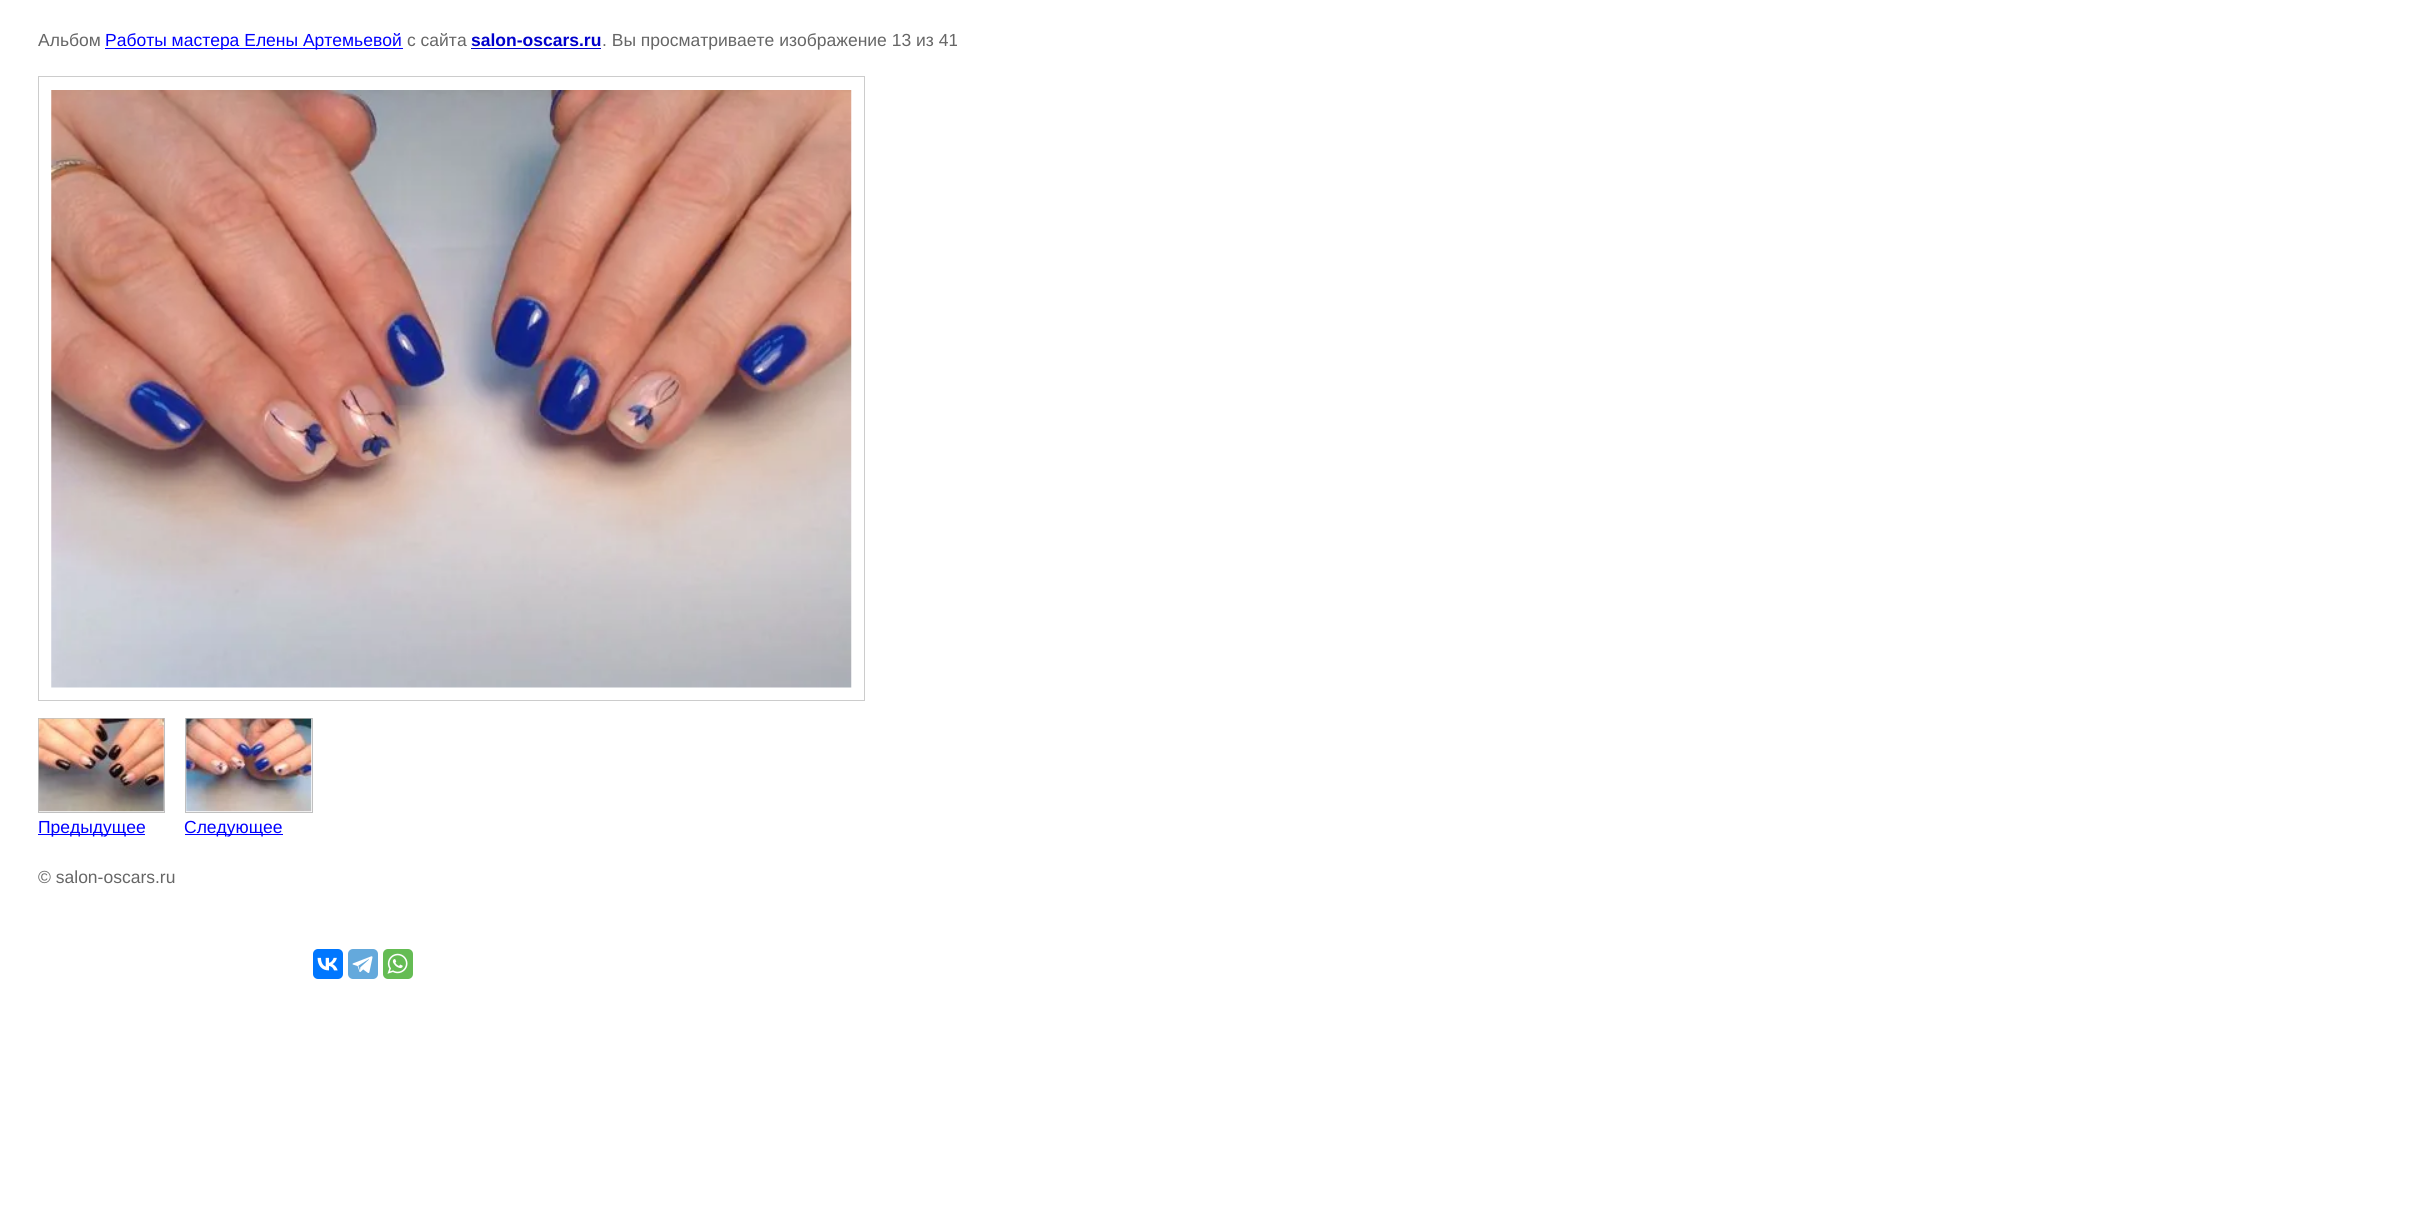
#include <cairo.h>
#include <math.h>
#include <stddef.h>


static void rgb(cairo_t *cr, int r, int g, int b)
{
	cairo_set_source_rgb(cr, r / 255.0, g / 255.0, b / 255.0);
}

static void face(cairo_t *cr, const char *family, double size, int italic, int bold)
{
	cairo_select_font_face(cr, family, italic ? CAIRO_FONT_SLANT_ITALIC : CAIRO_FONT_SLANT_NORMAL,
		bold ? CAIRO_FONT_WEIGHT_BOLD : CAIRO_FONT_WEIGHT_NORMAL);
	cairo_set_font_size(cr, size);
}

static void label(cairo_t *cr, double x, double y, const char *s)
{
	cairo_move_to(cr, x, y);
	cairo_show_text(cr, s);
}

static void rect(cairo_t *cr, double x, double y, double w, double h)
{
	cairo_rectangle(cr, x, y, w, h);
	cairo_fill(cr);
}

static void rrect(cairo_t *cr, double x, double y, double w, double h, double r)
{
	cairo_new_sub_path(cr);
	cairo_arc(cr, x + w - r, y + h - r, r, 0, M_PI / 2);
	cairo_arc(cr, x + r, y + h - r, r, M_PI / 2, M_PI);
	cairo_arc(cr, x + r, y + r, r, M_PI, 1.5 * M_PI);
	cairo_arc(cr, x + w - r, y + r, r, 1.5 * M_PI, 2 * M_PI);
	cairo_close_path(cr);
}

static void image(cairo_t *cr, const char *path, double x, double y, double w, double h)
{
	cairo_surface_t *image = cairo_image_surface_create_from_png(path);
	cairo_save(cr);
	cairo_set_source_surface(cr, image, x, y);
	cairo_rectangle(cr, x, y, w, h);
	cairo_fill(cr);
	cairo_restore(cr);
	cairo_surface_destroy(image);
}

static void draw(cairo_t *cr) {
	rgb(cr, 255, 255, 255);
	cairo_paint(cr);
	face(cr, "Liberation Sans", 17.5, 0, 0);
	rgb(cr, 102, 102, 102);
	label(cr, 38, 46, "Альбом");
	rgb(cr, 0, 0, 255);
	rect(cr, 105, 48, 298, 1);
	label(cr, 105, 46, "Работы мастера Елены Артемьевой");
	rgb(cr, 102, 102, 102);
	label(cr, 407, 46, "с сайта");
	face(cr, "Liberation Sans", 17.5, 0, 1);
	rgb(cr, 0, 0, 204);
	label(cr, 471, 46, "salon-oscars.ru");
	rect(cr, 471, 48, 130, 1);
	face(cr, "Liberation Sans", 17.5, 0, 0);
	rgb(cr, 102, 102, 102);
	label(cr, 602, 46, ". Вы просматриваете изображение 13 из 41");
	cairo_rectangle(cr, 38.5, 76.5, 826, 624);
	rgb(cr, 204, 204, 204);
	cairo_set_line_width(cr, 1);
	cairo_stroke(cr);
	image(cr, "image0.png", 51, 90, 801, 598);
	cairo_rectangle(cr, 38.5, 718.5, 126, 94);
	rgb(cr, 192, 192, 192);
	cairo_stroke(cr);
	image(cr, "image1.png", 38, 718, 126, 94);
	rgb(cr, 0, 0, 255);
	rect(cr, 38, 834, 107, 1);
	label(cr, 38, 833, "Предыдущее");
	cairo_rectangle(cr, 185.5, 718.5, 127, 94);
	rgb(cr, 192, 192, 192);
	cairo_stroke(cr);
	image(cr, "image2.png", 186, 718, 126, 94);
	rgb(cr, 0, 0, 255);
	rect(cr, 185, 834, 98, 1);
	label(cr, 184, 833, "Следующее");
	rgb(cr, 102, 102, 102);
	label(cr, 38, 883, "© salon-oscars.ru");
	rgb(cr, 0, 119, 255);
	rrect(cr, 313, 949, 30, 30, 5);
	cairo_fill(cr);
	image(cr, "image3.png", 317, 957, 21, 14);
	rgb(cr, 100, 169, 220);
	rrect(cr, 348, 949, 30, 30, 5);
	cairo_fill(cr);
	image(cr, "image4.png", 352, 956, 21, 17);
	rgb(cr, 101, 188, 84);
	rrect(cr, 383, 949, 30, 30, 5);
	cairo_fill(cr);
	image(cr, "image5.png", 387, 953, 21, 21);
}

int main(void) {
	cairo_surface_t *surface = cairo_image_surface_create(CAIRO_FORMAT_RGB24, 2418, 1228);
	cairo_t *cr = cairo_create(surface);
	cairo_font_options_t *options = cairo_font_options_create();
	cairo_font_options_set_hint_metrics(options, CAIRO_HINT_METRICS_OFF);
	cairo_font_options_set_hint_style(options, CAIRO_HINT_STYLE_NONE);
	cairo_set_font_options(cr, options);
	cairo_set_miter_limit(cr, 4);
	draw(cr);
	cairo_surface_write_to_png(surface, "render.png");
	cairo_font_options_destroy(options);
	cairo_destroy(cr);
	cairo_surface_destroy(surface);
	return 0;
}
